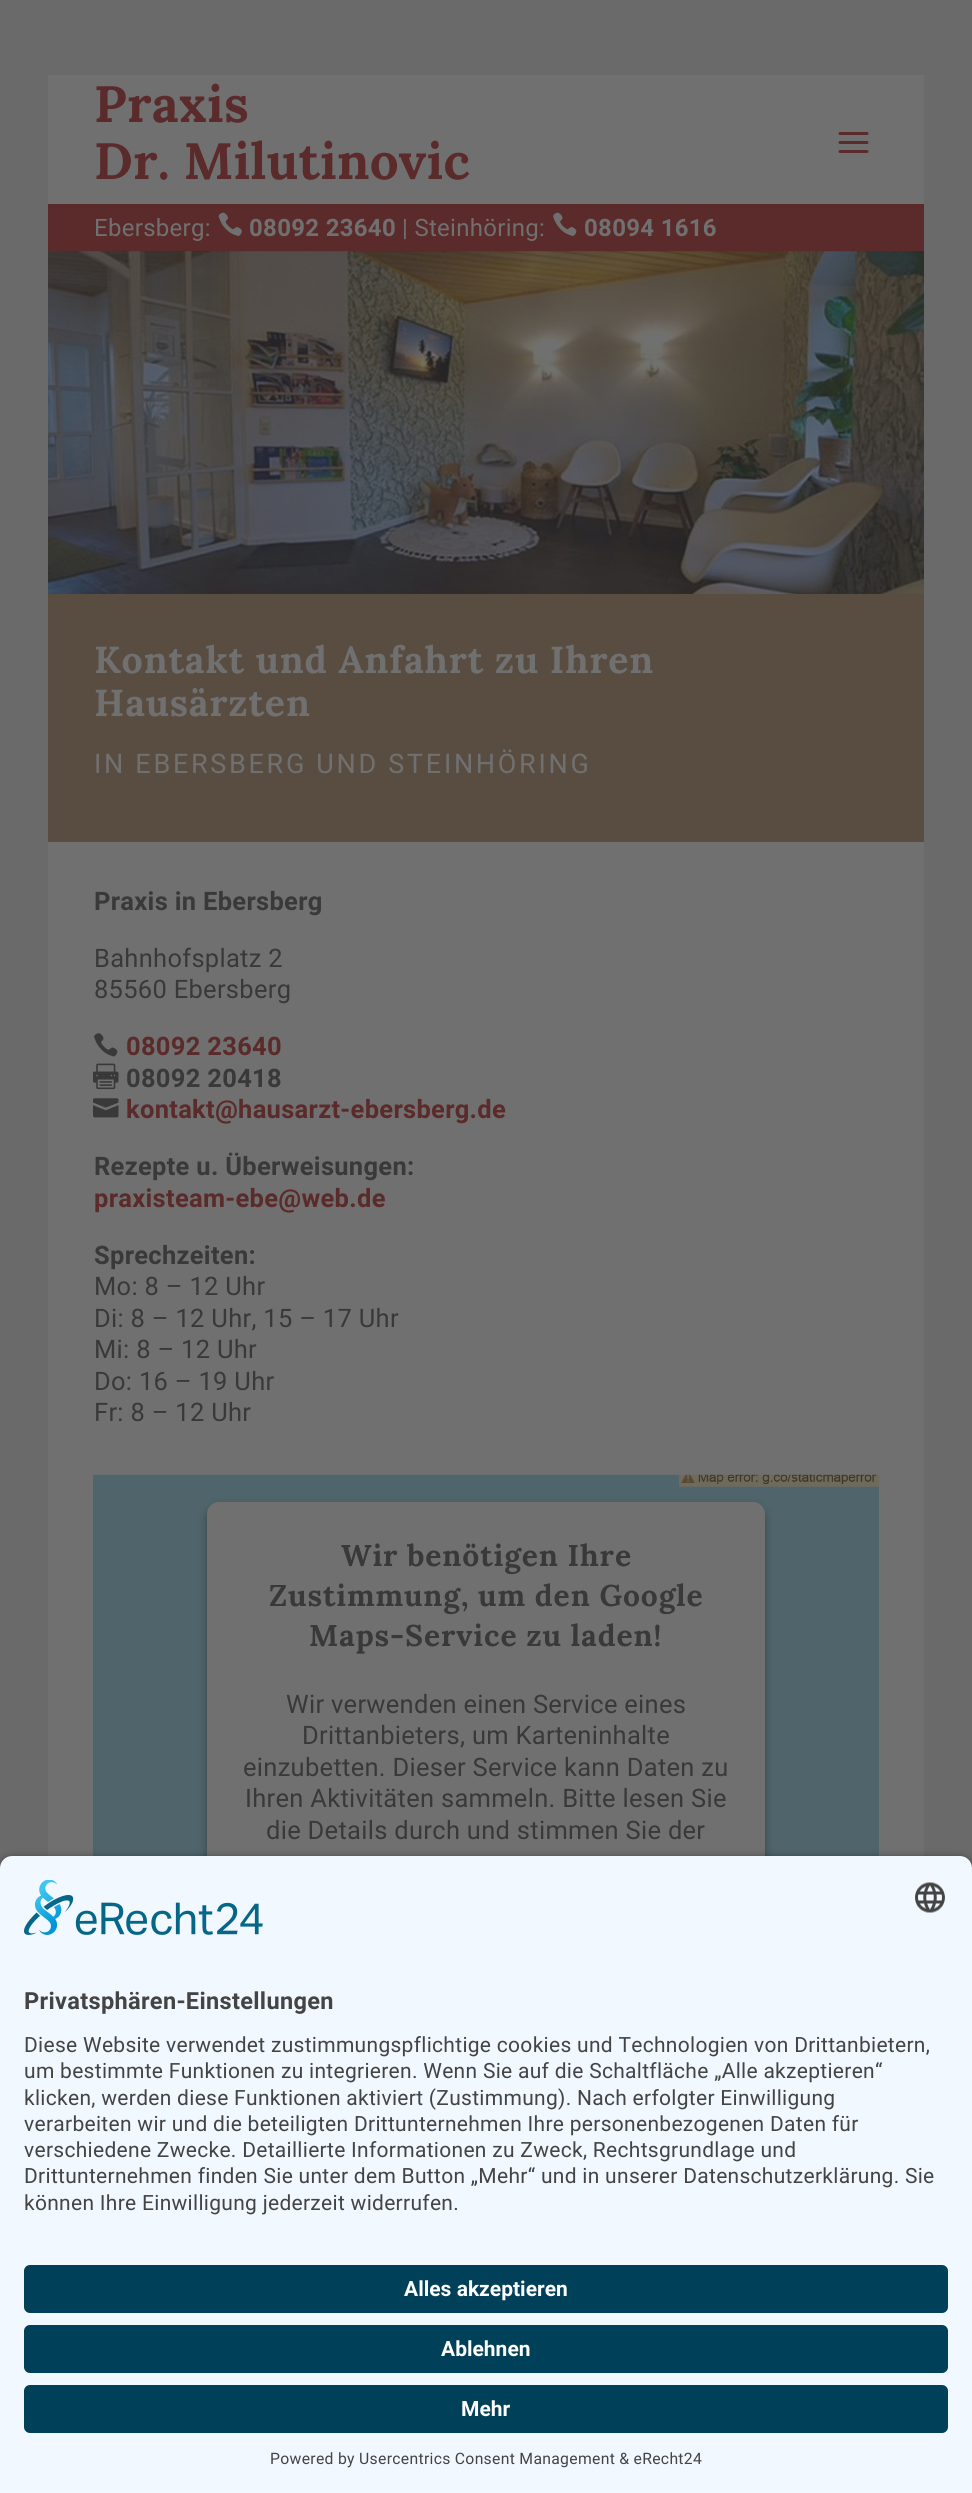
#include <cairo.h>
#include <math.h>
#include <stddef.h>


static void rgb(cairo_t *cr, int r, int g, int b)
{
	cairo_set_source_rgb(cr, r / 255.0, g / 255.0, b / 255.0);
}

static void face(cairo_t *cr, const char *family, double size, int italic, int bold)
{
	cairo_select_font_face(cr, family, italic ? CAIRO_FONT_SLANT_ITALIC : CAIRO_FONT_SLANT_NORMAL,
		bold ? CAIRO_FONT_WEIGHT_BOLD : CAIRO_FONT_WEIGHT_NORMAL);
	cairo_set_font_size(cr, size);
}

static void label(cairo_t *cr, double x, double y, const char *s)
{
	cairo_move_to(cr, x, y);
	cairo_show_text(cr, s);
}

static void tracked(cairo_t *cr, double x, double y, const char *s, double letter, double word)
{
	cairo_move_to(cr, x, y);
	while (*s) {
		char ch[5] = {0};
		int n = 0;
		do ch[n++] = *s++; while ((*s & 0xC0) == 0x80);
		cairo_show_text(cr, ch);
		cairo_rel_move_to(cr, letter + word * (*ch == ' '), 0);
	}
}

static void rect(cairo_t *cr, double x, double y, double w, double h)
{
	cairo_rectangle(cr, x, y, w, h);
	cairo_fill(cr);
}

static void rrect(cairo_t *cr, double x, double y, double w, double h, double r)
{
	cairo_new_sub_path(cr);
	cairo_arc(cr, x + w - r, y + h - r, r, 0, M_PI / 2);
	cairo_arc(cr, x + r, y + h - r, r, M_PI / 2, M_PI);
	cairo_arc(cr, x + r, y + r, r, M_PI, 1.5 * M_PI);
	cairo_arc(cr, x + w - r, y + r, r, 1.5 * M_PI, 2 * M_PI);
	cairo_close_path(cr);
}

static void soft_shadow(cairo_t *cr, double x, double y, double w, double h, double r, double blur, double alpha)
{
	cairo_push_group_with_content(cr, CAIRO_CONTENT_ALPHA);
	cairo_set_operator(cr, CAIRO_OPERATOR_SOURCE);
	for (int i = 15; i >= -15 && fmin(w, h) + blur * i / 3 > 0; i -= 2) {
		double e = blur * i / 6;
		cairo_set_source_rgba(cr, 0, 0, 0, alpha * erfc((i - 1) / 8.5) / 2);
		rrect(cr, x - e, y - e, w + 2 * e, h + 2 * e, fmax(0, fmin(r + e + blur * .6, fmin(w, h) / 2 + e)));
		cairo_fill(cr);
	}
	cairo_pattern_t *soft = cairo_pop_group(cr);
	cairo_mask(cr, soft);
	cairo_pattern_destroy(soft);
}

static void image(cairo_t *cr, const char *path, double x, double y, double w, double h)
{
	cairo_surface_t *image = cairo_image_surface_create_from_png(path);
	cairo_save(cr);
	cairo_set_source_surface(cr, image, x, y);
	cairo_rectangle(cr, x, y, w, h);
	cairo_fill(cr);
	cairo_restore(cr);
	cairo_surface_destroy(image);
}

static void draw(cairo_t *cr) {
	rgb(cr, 106, 106, 106);
	cairo_paint(cr);
	image(cr, "image3.png", 48, 251, 876, 343);
	cairo_set_source_rgba(cr, 0.141, 0.141, 0.141, 0.1);
	rect(cr, 78, 251, 785, 1);
	rgb(cr, 112, 112, 112);
	rect(cr, 48, 75, 876, 129);
	face(cr, "Lora", 51, 0, 1);
	rgb(cr, 91, 42, 42);
	tracked(cr, 94, 122, "Praxis", 0.3, 0);
	tracked(cr, 94, 179, "Dr. Milutinovic", 0.3, 0);
	image(cr, "image0.png", 838, 132, 31, 21);
	rect(cr, 48, 204, 876, 47);
	face(cr, "Roboto", 24, 0, 0);
	rgb(cr, 112, 112, 112);
	tracked(cr, 94, 236, "Ebersberg:", 0.3, 0);
	image(cr, "image1.png", 218, 212, 24, 24);
	face(cr, "Roboto", 24, 0, 1);
	tracked(cr, 249, 236, "08092 23640", 0.3, 0);
	face(cr, "Roboto", 24, 0, 0);
	tracked(cr, 402, 236, "| Steinhöring:", 0.3, 0);
	image(cr, "image2.png", 553, 212, 24, 24);
	face(cr, "Roboto", 24, 0, 1);
	tracked(cr, 584, 236, "08094 1616", 0.3, 0);
	rgb(cr, 89, 77, 65);
	rect(cr, 48, 594, 876, 248);
	face(cr, "Lora", 37.5, 0, 1);
	rgb(cr, 112, 112, 112);
	tracked(cr, 94, 673, "Kontakt und Anfahrt zu Ihren", 0.9, 0);
	tracked(cr, 94, 716, "Hausärzten", 0.9, 0);
	face(cr, "Roboto", 27, 0, 0);
	tracked(cr, 94, 773, "IN EBERSBERG UND STEINHÖRING", 2.7, 0);
	rect(cr, 48, 842, 876, 1014);
	face(cr, "Roboto", 25.5, 0, 1);
	rgb(cr, 57, 57, 57);
	tracked(cr, 94, 910, "Praxis in Ebersberg", 0.3, 0);
	face(cr, "Roboto", 25.5, 0, 0);
	tracked(cr, 94, 967, "Bahnhofsplatz 2", 0.3, 0);
	tracked(cr, 94, 998, "85560 Ebersberg", 0.3, 0);
	image(cr, "image4.png", 94, 1033, 24, 24);
	face(cr, "Roboto", 25.5, 0, 1);
	rgb(cr, 91, 42, 42);
	tracked(cr, 126, 1055, "08092 23640", 0.3, 0);
	image(cr, "image5.png", 93, 1063, 26, 27);
	rgb(cr, 57, 57, 57);
	tracked(cr, 126, 1087, "08092 20418", 0.3, 0);
	image(cr, "image6.png", 93, 1098, 26, 20);
	rgb(cr, 91, 42, 42);
	tracked(cr, 126, 1118, "kontakt@hausarzt-ebersberg.de", 0.3, 0);
	rgb(cr, 57, 57, 57);
	tracked(cr, 94, 1175, "Rezepte u. Überweisungen:", 0.3, 0);
	rgb(cr, 91, 42, 42);
	tracked(cr, 94, 1207, "praxisteam-ebe@web.de", 0.3, 0);
	rgb(cr, 57, 57, 57);
	tracked(cr, 94, 1264, "Sprechzeiten:", 0.3, 0);
	face(cr, "Roboto", 25.5, 0, 0);
	tracked(cr, 94, 1295, "Mo: 8 – 12 Uhr", 0.3, 0);
	tracked(cr, 94, 1327, "Di: 8 – 12 Uhr, 15 – 17 Uhr", 0.3, 0);
	tracked(cr, 94, 1358, "Mi: 8 – 12 Uhr", 0.3, 0);
	tracked(cr, 94, 1390, "Do: 16 – 19 Uhr", 0.3, 0);
	tracked(cr, 94, 1421, "Fr: 8 – 12 Uhr", 0.3, 0);
	image(cr, "image7.png", 93, 1474, 786, 382);
	rgb(cr, 36, 36, 36);
	soft_shadow(cr, 207, 1506, 558, 548, 12, 4.5, 0.5);
	rgb(cr, 112, 112, 112);
	rrect(cr, 207, 1502, 558, 547, 12);
	cairo_fill(cr);
	face(cr, "Lora", 30, 0, 1);
	rgb(cr, 57, 57, 57);
	tracked(cr, 341, 1566, "Wir benötigen Ihre", 0.9, 0);
	tracked(cr, 269, 1606, "Zustimmung, um den Google", 0.9, 0);
	tracked(cr, 309, 1646, "Maps-Service zu laden!", 0.9, 0);
	face(cr, "Roboto", 25.5, 0, 0);
	tracked(cr, 286, 1713, "Wir verwenden einen Service eines", 0.3, 0);
	tracked(cr, 302, 1744, "Drittanbieters, um Karteninhalte", 0.3, 0);
	tracked(cr, 243, 1776, "einzubetten. Dieser Service kann Daten zu", 0.3, 0);
	tracked(cr, 245, 1807, "Ihren Aktivitäten sammeln. Bitte lesen Sie", 0.3, 0);
	tracked(cr, 266, 1839, "die Details durch und stimmen Sie der", 0.3, 0);
	rgb(cr, 0, 0, 0);
	soft_shadow(cr, 0, 1860, 972, 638, 12, 5, 0.8);
	rgb(cr, 241, 248, 255);
	cairo_new_path(cr);
	cairo_move_to(cr, 12, 1856);
	cairo_line_to(cr, 960, 1856);
	cairo_curve_to(cr, 966.5, 1856, 972, 1861.5, 972, 1868);
	cairo_line_to(cr, 972, 2247);
	cairo_line_to(cr, 0, 2247);
	cairo_line_to(cr, 0, 1868);
	cairo_curve_to(cr, 0, 1861.5, 5.5, 1856, 12, 1856);
	cairo_close_path(cr);
	cairo_fill(cr);
	image(cr, "image8.png", 24, 1880, 239, 55);
	image(cr, "image9.png", 915, 1882, 30, 31);
	face(cr, "Roboto", 23.6, 0, 1);
	rgb(cr, 68, 68, 68);
	tracked(cr, 24, 2009, "Privatsphären-Einstellungen", 0.3, 0);
	face(cr, "Roboto", 21, 0, 0);
	tracked(cr, 24, 2052, "Diese Website verwendet zustimmungspflichtige cookies und Technologien von Drittanbietern,", 0.3, 0);
	tracked(cr, 24, 2078, "um bestimmte Funktionen zu integrieren. Wenn Sie auf die Schaltfläche „Alle akzeptieren“", 0.3, 0);
	tracked(cr, 24, 2105, "klicken, werden diese Funktionen aktiviert (Zustimmung). Nach erfolgter Einwilligung", 0.3, 0);
	tracked(cr, 24, 2131, "verarbeiten wir und die beteiligten Drittunternehmen Ihre personenbezogenen Daten für", 0.3, 0);
	tracked(cr, 24, 2157, "verschiedene Zwecke. Detaillierte Informationen zu Zweck, Rechtsgrundlage und", 0.3, 0);
	tracked(cr, 24, 2183, "Drittunternehmen finden Sie unter dem Button „Mehr“ und in unserer Datenschutzerklärung. Sie", 0.3, 0);
	tracked(cr, 24, 2210, "können Ihre Einwilligung jederzeit widerrufen.", 0.3, 0);
	rgb(cr, 241, 248, 255);
	rect(cr, 0, 2247, 972, 246);
	rgb(cr, 0, 64, 89);
	rrect(cr, 24, 2265, 924, 48, 6);
	cairo_fill(cr);
	face(cr, "Roboto", 21, 0, 1);
	rgb(cr, 255, 255, 255);
	label(cr, 404, 2296, "Alles akzeptieren");
	rgb(cr, 0, 64, 89);
	rrect(cr, 24, 2325, 924, 48, 6);
	cairo_fill(cr);
	rgb(cr, 255, 255, 255);
	label(cr, 441, 2356, "Ablehnen");
	rgb(cr, 0, 64, 89);
	rrect(cr, 24, 2385, 924, 48, 6);
	cairo_fill(cr);
	rgb(cr, 255, 255, 255);
	label(cr, 461, 2416, "Mehr");
	face(cr, "Roboto", 15.75, 0, 0);
	rgb(cr, 68, 68, 68);
	tracked(cr, 270, 2464, "Powered by Usercentrics Consent Management & eRecht24", 0.3, 0);
}

int main(void) {
	cairo_surface_t *surface = cairo_image_surface_create(CAIRO_FORMAT_RGB24, 972, 2493);
	cairo_t *cr = cairo_create(surface);
	cairo_font_options_t *options = cairo_font_options_create();
	cairo_font_options_set_hint_metrics(options, CAIRO_HINT_METRICS_OFF);
	cairo_font_options_set_hint_style(options, CAIRO_HINT_STYLE_NONE);
	cairo_set_font_options(cr, options);
	cairo_set_miter_limit(cr, 4);
	draw(cr);
	cairo_surface_write_to_png(surface, "render.png");
	cairo_font_options_destroy(options);
	cairo_destroy(cr);
	cairo_surface_destroy(surface);
	return 0;
}
